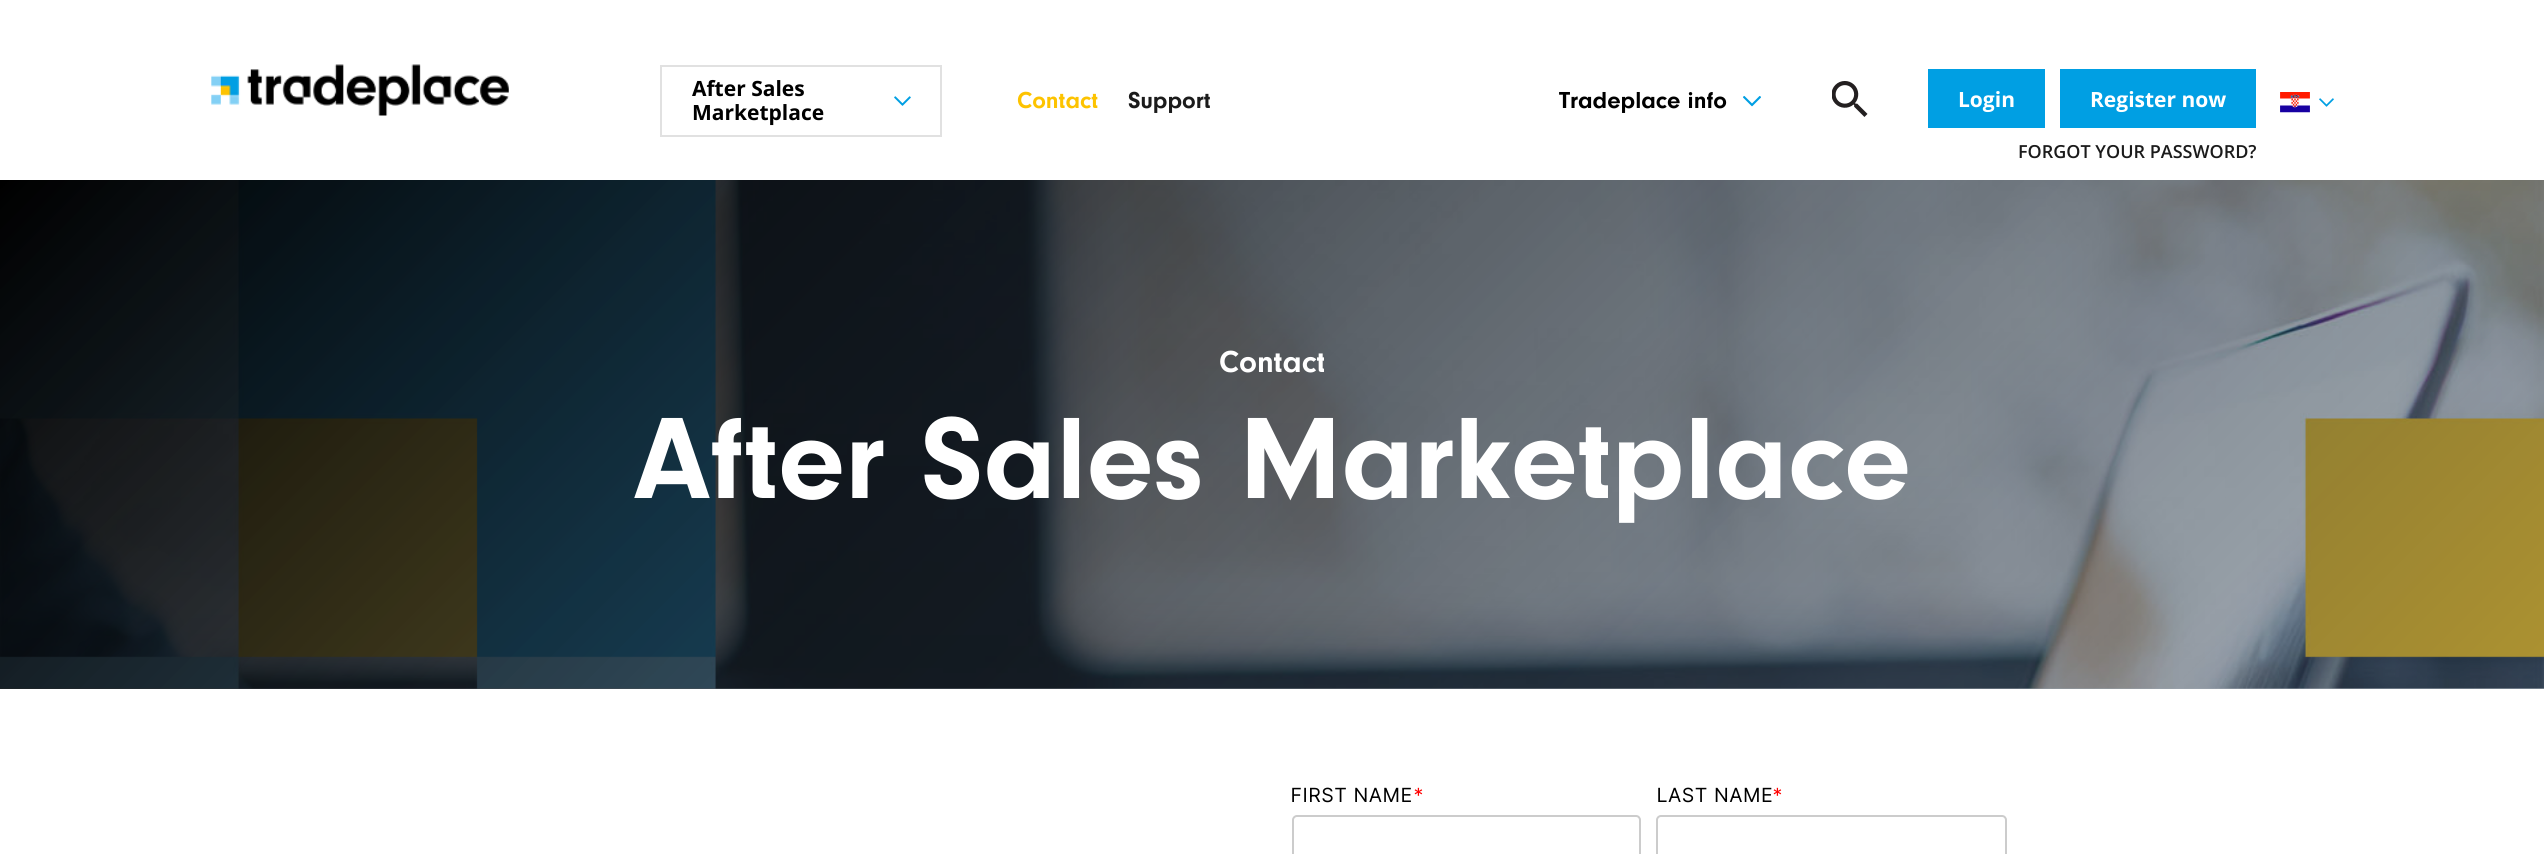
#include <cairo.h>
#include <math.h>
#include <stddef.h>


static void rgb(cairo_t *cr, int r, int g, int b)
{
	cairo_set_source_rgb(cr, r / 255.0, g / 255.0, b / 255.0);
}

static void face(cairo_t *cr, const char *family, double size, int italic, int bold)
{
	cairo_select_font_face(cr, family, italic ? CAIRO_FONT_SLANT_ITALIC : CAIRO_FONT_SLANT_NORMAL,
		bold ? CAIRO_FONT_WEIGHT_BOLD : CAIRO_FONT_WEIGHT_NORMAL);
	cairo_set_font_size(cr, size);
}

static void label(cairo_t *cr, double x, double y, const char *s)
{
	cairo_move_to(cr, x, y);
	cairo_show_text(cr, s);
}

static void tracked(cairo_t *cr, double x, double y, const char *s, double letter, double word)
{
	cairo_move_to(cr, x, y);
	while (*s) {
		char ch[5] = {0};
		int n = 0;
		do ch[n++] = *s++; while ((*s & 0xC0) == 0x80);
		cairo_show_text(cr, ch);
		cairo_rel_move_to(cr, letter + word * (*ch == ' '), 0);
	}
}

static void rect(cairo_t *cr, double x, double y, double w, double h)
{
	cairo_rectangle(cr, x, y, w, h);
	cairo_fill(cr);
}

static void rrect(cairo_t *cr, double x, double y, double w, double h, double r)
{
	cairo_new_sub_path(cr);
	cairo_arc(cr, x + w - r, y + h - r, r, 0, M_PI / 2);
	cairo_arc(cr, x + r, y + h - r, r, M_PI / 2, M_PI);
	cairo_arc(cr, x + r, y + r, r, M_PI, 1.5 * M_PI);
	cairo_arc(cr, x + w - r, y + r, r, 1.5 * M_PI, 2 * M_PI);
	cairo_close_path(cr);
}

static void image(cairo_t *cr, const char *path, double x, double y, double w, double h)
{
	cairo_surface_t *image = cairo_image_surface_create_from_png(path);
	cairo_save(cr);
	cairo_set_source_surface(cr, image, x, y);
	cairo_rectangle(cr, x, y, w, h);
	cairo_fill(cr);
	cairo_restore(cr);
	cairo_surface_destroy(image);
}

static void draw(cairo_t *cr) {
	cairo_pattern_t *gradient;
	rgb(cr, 255, 255, 255);
	cairo_paint(cr);
	image(cr, "image0.png", 211, 64, 298, 52);
	cairo_rectangle(cr, 661, 66, 280, 70);
	rgb(cr, 225, 225, 225);
	cairo_stroke(cr);
	face(cr, "Open Sans", 21, 0, 1);
	rgb(cr, 0, 0, 0);
	label(cr, 692, 96, "After Sales");
	label(cr, 692, 120, "Marketplace");
	image(cr, "image1.png", 894, 96, 17, 10);
	face(cr, "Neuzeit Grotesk", 24, 0, 1);
	rgb(cr, 253, 195, 0);
	label(cr, 1017, 108, "Contact");
	rgb(cr, 27, 27, 27);
	label(cr, 1128, 108, "Support");
	rgb(cr, 0, 0, 0);
	label(cr, 1559, 108, "Tradeplace info");
	image(cr, "image2.png", 1743, 96, 18, 11);
	image(cr, "image3.png", 1832, 81, 36, 36);
	rgb(cr, 0, 159, 227);
	rect(cr, 1928, 69, 117, 59);
	face(cr, "Open Sans", 21, 0, 1);
	rgb(cr, 255, 255, 255);
	label(cr, 1958, 107, "Login");
	rgb(cr, 0, 159, 227);
	rect(cr, 2060, 69, 196, 59);
	rgb(cr, 255, 255, 255);
	label(cr, 2090, 107, "Register now");
	face(cr, "Open Sans SemiBold", 18, 0, 0);
	rgb(cr, 27, 27, 27);
	label(cr, 2018, 158, "FORGOT YOUR PASSWORD?");
	image(cr, "image4.png", 2280, 92, 30, 21);
	image(cr, "image5.png", 2319, 98, 15, 9);
	image(cr, "image6.png", 0, 180, 2544, 509);
	gradient = cairo_pattern_create_linear(2035, 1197, 509, -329);
	cairo_pattern_add_color_stop_rgba(gradient, 0, 0.2, 0.278, 0.357, 0.4);
	cairo_pattern_add_color_stop_rgba(gradient, 1, 0, 0, 0, 1);
	cairo_set_source(cr, gradient);
	cairo_pattern_destroy(gradient);
	rect(cr, 0, 180, 2544, 509);
	face(cr, "Neuzeit Grotesk", 31.5, 0, 1);
	rgb(cr, 255, 255, 255);
	label(cr, 1219, 372, "Contact");
	face(cr, "Neuzeit Grotesk", 120, 0, 1);
	label(cr, 634, 498, "After Sales Marketplace");
	face(cr, "Inter Tight", 19.5, 0, 0);
	rgb(cr, 0, 0, 0);
	tracked(cr, 1291, 802, "FIRST NAME", 1.5, 0);
	rgb(cr, 255, 0, 0);
	tracked(cr, 1414, 802, "*", 1.5, 0);
	rrect(cr, 1293, 816, 347, 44, 4);
	rgb(cr, 204, 204, 204);
	cairo_stroke(cr);
	rgb(cr, 0, 0, 0);
	tracked(cr, 1657, 802, "LAST NAME", 1.5, 0);
	rgb(cr, 255, 0, 0);
	tracked(cr, 1773, 802, "*", 1.5, 0);
	rrect(cr, 1657, 816, 349, 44, 4);
	rgb(cr, 204, 204, 204);
	cairo_stroke(cr);
}

int main(void) {
	cairo_surface_t *surface = cairo_image_surface_create(CAIRO_FORMAT_RGB24, 2544, 854);
	cairo_t *cr = cairo_create(surface);
	cairo_font_options_t *options = cairo_font_options_create();
	cairo_font_options_set_hint_metrics(options, CAIRO_HINT_METRICS_OFF);
	cairo_font_options_set_hint_style(options, CAIRO_HINT_STYLE_NONE);
	cairo_set_font_options(cr, options);
	cairo_set_miter_limit(cr, 4);
	draw(cr);
	cairo_surface_write_to_png(surface, "render.png");
	cairo_font_options_destroy(options);
	cairo_destroy(cr);
	cairo_surface_destroy(surface);
	return 0;
}
